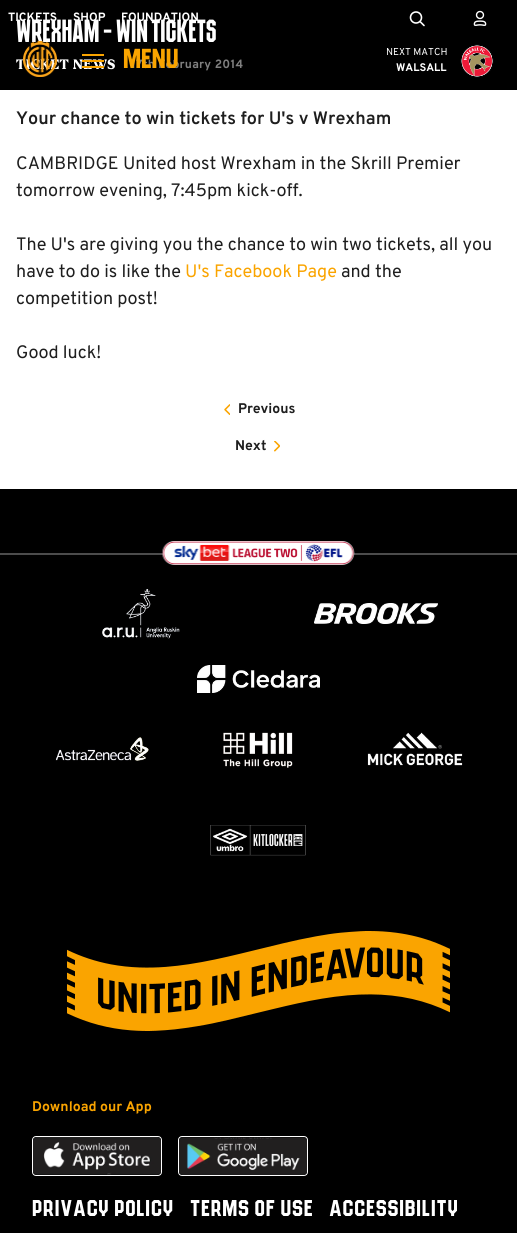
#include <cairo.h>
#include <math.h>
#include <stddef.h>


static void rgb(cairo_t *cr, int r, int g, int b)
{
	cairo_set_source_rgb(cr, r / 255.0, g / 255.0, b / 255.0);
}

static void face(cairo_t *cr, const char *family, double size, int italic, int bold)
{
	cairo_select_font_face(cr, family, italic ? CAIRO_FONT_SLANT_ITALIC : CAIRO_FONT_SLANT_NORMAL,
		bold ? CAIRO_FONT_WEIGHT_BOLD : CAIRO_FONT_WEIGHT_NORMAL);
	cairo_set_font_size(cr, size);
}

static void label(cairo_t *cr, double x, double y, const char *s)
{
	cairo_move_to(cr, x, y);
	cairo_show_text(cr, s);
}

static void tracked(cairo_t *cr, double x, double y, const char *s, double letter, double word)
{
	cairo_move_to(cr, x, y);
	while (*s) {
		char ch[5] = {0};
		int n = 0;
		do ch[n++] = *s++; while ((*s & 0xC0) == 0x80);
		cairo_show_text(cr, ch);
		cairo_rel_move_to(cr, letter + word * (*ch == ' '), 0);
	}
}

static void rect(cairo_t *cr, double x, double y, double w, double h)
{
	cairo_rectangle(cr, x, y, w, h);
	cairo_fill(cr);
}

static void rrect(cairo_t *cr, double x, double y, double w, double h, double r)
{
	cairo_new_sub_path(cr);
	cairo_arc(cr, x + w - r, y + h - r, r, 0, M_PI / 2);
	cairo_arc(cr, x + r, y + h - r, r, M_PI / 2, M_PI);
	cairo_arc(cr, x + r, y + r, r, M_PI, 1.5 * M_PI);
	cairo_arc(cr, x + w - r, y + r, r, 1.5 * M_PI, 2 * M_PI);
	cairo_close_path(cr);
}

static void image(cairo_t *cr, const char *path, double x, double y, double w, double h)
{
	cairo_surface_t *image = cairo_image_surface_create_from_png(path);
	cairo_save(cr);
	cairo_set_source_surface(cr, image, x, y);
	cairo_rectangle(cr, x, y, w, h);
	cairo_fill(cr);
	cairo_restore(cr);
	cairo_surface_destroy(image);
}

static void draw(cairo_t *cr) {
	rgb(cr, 0, 0, 0);
	cairo_paint(cr);
	face(cr, "Overpass", 12, 0, 1);
	rgb(cr, 255, 255, 255);
	label(cr, 8, 21, "TICKETS");
	label(cr, 73, 21, "SHOP");
	label(cr, 121, 21, "FOUNDATION");
	cairo_new_path(cr);
	cairo_arc(cr, 416, 17.5, 5.5, 0, 2 * M_PI);
	cairo_set_line_width(cr, 1.6);
	cairo_stroke(cr);
	cairo_new_path(cr);
	cairo_move_to(cr, 420.5, 22);
	cairo_line_to(cr, 424, 25.5);
	cairo_set_line_cap(cr, CAIRO_LINE_CAP_ROUND);
	cairo_stroke(cr);
	image(cr, "image0.png", 473, 10, 14, 16);
	face(cr, "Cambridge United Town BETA", 28, 0, 0);
	label(cr, 16, 42, "WREXHAM - WIN TICKETS");
	face(cr, "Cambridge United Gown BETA", 12, 0, 0);
	tracked(cr, 16, 69, "Ticket News", 0.25, 0);
	image(cr, "image1.png", 23, 41, 34, 36);
	rgb(cr, 250, 164, 0);
	rect(cr, 82, 60, 22, 2);
	rect(cr, 82, 54, 22, 2);
	rect(cr, 82, 66, 22, 2);
	face(cr, "Overpass", 12, 0, 1);
	rgb(cr, 128, 128, 128);
	tracked(cr, 131, 68, "17th February 2014", 0.25, 0);
	face(cr, "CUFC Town", 24, 0, 0);
	rgb(cr, 250, 164, 0);
	label(cr, 123, 68, "MENU");
	face(cr, "Overpass", 10, 0, 0);
	rgb(cr, 255, 255, 255);
	label(cr, 386, 55, "NEXT MATCH");
	face(cr, "Overpass", 11, 0, 1);
	label(cr, 396, 71, "WALSALL");
	image(cr, "image2.png", 460, 44, 34, 34);
	rect(cr, 0, 90, 517, 399);
	face(cr, "Overpass SemiBold", 18, 0, 0);
	rgb(cr, 30, 30, 30);
	label(cr, 16, 124, "Your chance to win tickets for U's v Wrexham");
	face(cr, "Overpass", 18, 0, 0);
	label(cr, 16, 169, "CAMBRIDGE United host Wrexham in the Skrill Premier");
	label(cr, 16, 196, "tomorrow evening, 7:45pm kick-off.");
	label(cr, 16, 250, "The U's are giving you the chance to win two tickets, all you");
	label(cr, 16, 277, "have to do is like the");
	rgb(cr, 250, 164, 0);
	label(cr, 185, 277, "U's Facebook Page");
	rgb(cr, 30, 30, 30);
	label(cr, 341, 277, "and the");
	label(cr, 16, 304, "competition post!");
	label(cr, 16, 358, "Good luck!");
	image(cr, "image3.png", 224, 404, 6, 11);
	face(cr, "Overpass", 14, 0, 1);
	label(cr, 238, 413, "Previous");
	label(cr, 235, 450, "Next");
	image(cr, "image4.png", 274, 441, 6, 11);
	rgb(cr, 76, 76, 76);
	rect(cr, 0, 553, 517, 2);
	image(cr, "image5.png", 162, 541, 193, 24);
	image(cr, "image6.png", 102, 589, 78, 50);
	image(cr, "image7.png", 314, 603, 124, 21);
	image(cr, "image8.png", 197, 665, 123, 28);
	image(cr, "image9.png", 55, 737, 94, 24);
	image(cr, "image10.png", 223, 732, 70, 36);
	image(cr, "image11.png", 367, 732, 96, 34);
	image(cr, "image12.png", 210, 825, 96, 31);
	image(cr, "image13.png", 67, 931, 383, 100);
	rgb(cr, 250, 164, 0);
	label(cr, 32, 1111, "Download our App");
	rrect(cr, 32.5, 1136.5, 129, 39, 3.5);
	rgb(cr, 255, 255, 255);
	cairo_set_line_width(cr, 1);
	cairo_set_line_cap(cr, CAIRO_LINE_CAP_BUTT);
	cairo_stroke(cr);
	image(cr, "image14.png", 33, 1137, 128, 38);
	rrect(cr, 178.5, 1136.5, 129, 39, 3.5);
	cairo_stroke(cr);
	image(cr, "image15.png", 179, 1137, 128, 38);
	face(cr, "CUFC Town", 20, 0, 0);
	tracked(cr, 32, 1216, "PRIVACY POLICY", 0.75, 0);
	tracked(cr, 190, 1216, "TERMS OF USE", 0.75, 0);
	tracked(cr, 329, 1216, "ACCESSIBILITY", 0.75, 0);
}

int main(void) {
	cairo_surface_t *surface = cairo_image_surface_create(CAIRO_FORMAT_RGB24, 517, 1233);
	cairo_t *cr = cairo_create(surface);
	cairo_font_options_t *options = cairo_font_options_create();
	cairo_font_options_set_hint_metrics(options, CAIRO_HINT_METRICS_OFF);
	cairo_font_options_set_hint_style(options, CAIRO_HINT_STYLE_NONE);
	cairo_set_font_options(cr, options);
	cairo_set_miter_limit(cr, 4);
	draw(cr);
	cairo_surface_write_to_png(surface, "render.png");
	cairo_font_options_destroy(options);
	cairo_destroy(cr);
	cairo_surface_destroy(surface);
	return 0;
}
